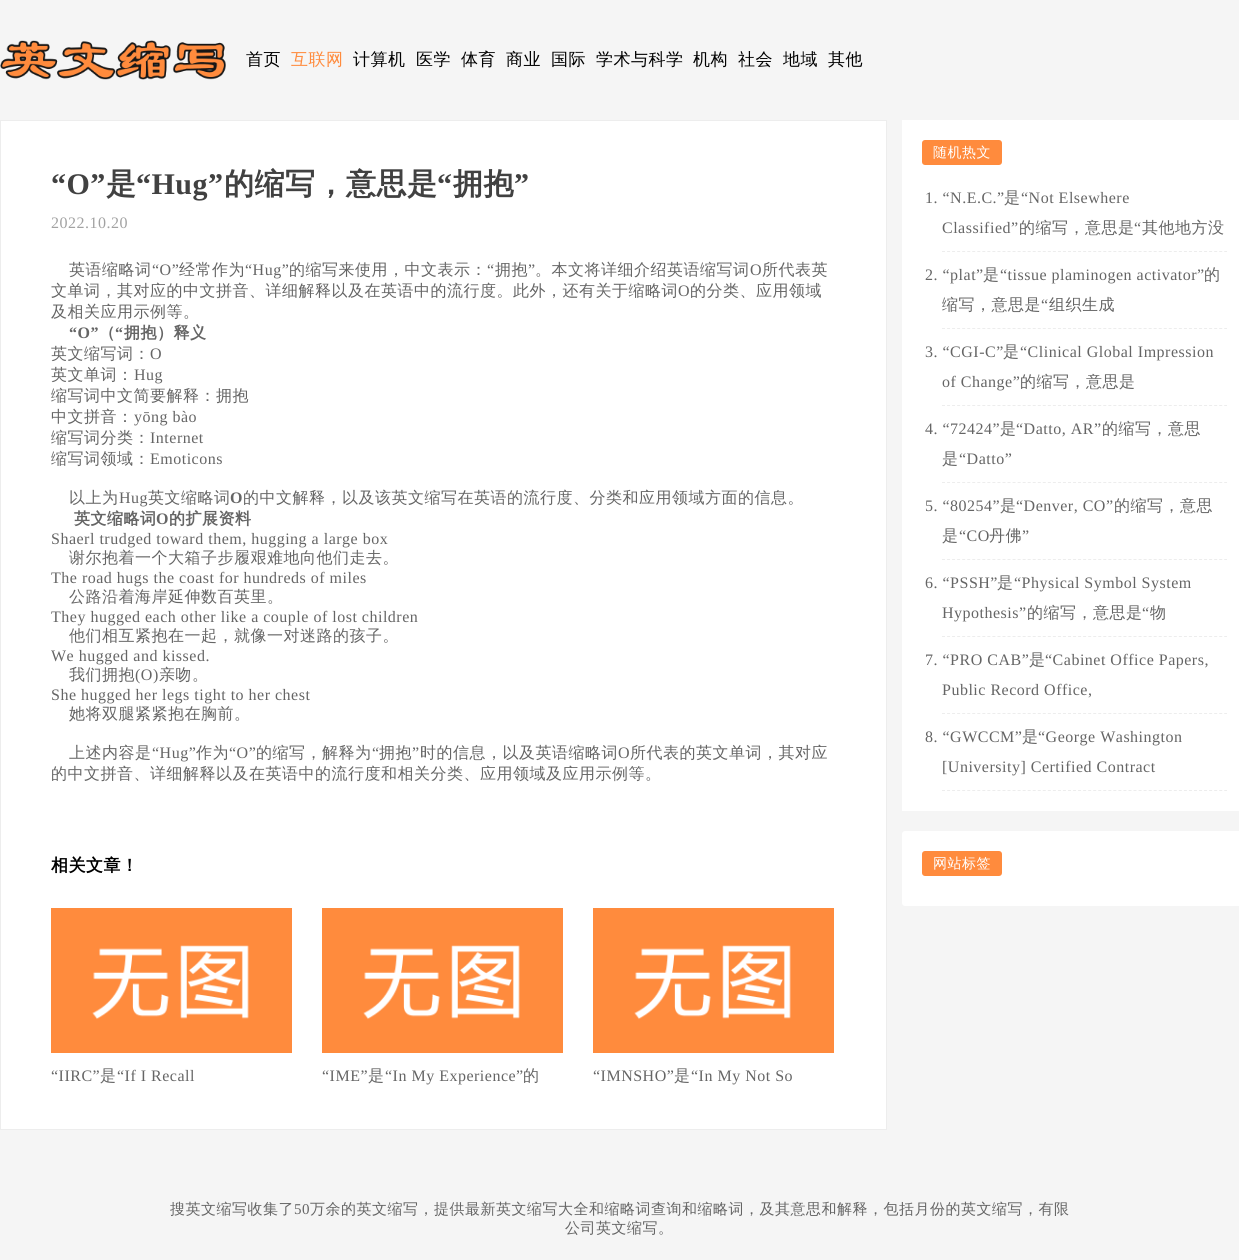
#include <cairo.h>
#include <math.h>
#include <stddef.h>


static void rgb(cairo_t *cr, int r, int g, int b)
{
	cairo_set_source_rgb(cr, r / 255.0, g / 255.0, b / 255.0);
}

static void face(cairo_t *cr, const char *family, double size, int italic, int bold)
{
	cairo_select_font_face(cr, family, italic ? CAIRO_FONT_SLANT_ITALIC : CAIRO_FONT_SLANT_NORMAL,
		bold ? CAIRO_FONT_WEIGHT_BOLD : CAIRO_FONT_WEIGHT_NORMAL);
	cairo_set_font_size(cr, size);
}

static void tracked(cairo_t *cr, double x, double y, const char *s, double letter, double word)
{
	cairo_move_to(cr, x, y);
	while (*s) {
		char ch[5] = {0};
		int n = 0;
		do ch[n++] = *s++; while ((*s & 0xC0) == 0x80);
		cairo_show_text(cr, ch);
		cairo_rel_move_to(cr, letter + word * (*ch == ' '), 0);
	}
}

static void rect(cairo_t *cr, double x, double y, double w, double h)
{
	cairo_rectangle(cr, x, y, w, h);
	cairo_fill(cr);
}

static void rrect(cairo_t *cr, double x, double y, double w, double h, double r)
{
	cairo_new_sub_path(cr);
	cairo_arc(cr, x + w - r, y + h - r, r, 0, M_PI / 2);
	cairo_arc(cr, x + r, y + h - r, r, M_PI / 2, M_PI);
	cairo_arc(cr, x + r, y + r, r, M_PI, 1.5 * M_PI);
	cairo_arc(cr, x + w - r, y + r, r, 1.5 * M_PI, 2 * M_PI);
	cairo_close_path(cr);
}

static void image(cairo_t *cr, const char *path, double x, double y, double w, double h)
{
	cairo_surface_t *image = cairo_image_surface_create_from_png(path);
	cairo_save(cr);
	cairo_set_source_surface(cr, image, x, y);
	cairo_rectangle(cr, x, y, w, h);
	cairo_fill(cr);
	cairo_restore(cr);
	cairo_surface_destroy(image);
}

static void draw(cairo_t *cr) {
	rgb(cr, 245, 245, 245);
	cairo_paint(cr);
	image(cr, "image0.png", 0, 40, 226, 40);
	face(cr, "WenQuanYi Zen Hei Medium", 17, 0, 0);
	rgb(cr, 0, 0, 0);
	tracked(cr, 246, 65, "首页", 0.5, 0);
	rgb(cr, 255, 139, 61);
	tracked(cr, 291, 65, "互联网", 0.5, 0);
	rgb(cr, 0, 0, 0);
	tracked(cr, 353, 65, "计算机", 0.5, 0);
	tracked(cr, 416, 65, "医学", 0.5, 0);
	tracked(cr, 461, 65, "体育", 0.5, 0);
	tracked(cr, 506, 65, "商业", 0.5, 0);
	tracked(cr, 551, 65, "国际", 0.5, 0);
	tracked(cr, 596, 65, "学术与科学", 0.5, 0);
	tracked(cr, 693, 65, "机构", 0.5, 0);
	tracked(cr, 738, 65, "社会", 0.5, 0);
	tracked(cr, 783, 65, "地域", 0.5, 0);
	tracked(cr, 828, 65, "其他", 0.5, 0);
	rgb(cr, 255, 255, 255);
	cairo_rectangle(cr, 0.5, 120.5, 886, 1009);
	cairo_fill_preserve(cr);
	rgb(cr, 237, 237, 237);
	cairo_set_line_width(cr, 1);
	cairo_stroke(cr);
	face(cr, "Liberation Serif", 30, 0, 1);
	rgb(cr, 65, 65, 65);
	tracked(cr, 51, 194, "“O”", 0.5, 0);
	face(cr, "WenQuanYi Zen Hei", 30, 0, 1);
	tracked(cr, 106, 194, "是", 0.5, 0);
	face(cr, "Liberation Serif", 30, 0, 1);
	tracked(cr, 136, 194, "“Hug”", 0.5, 0);
	face(cr, "WenQuanYi Zen Hei", 30, 0, 1);
	tracked(cr, 224, 194, "的缩写，意思是", 0.5, 0);
	face(cr, "Liberation Serif", 30, 0, 1);
	tracked(cr, 437, 194, "“", 0.5, 0);
	face(cr, "WenQuanYi Zen Hei", 30, 0, 1);
	tracked(cr, 453, 194, "拥抱", 0.5, 0);
	face(cr, "Liberation Serif", 30, 0, 1);
	tracked(cr, 514, 194, "”", 0.5, 0);
	face(cr, "Liberation Serif", 16, 0, 0);
	rgb(cr, 162, 162, 162);
	tracked(cr, 51, 228, "2022.10.20", 0.5, 0);
	face(cr, "WenQuanYi Zen Hei Medium", 16, 0, 0);
	rgb(cr, 101, 101, 101);
	tracked(cr, 69, 275, "英语缩略词", 0.5, 0);
	face(cr, "Liberation Serif", 16, 0, 0);
	tracked(cr, 152, 275, "“O”", 0.5, 0);
	face(cr, "WenQuanYi Zen Hei Medium", 16, 0, 0);
	tracked(cr, 179, 275, "经常作为", 0.5, 0);
	face(cr, "Liberation Serif", 16, 0, 0);
	tracked(cr, 245, 275, "“Hug”", 0.5, 0);
	face(cr, "WenQuanYi Zen Hei Medium", 16, 0, 0);
	tracked(cr, 289, 275, "的缩写来使用，中文表示：", 0.5, 0);
	face(cr, "Liberation Serif", 16, 0, 0);
	tracked(cr, 487, 275, "“", 0.5, 0);
	face(cr, "WenQuanYi Zen Hei Medium", 16, 0, 0);
	tracked(cr, 495, 275, "拥抱", 0.5, 0);
	face(cr, "Liberation Serif", 16, 0, 0);
	tracked(cr, 528, 275, "”", 0.5, 0);
	face(cr, "WenQuanYi Zen Hei Medium", 16, 0, 0);
	tracked(cr, 535, 275, "。本文将详细介绍英语缩写词", 0.5, 0);
	face(cr, "Liberation Serif", 16, 0, 0);
	tracked(cr, 750, 275, "O", 0.5, 0);
	face(cr, "WenQuanYi Zen Hei Medium", 16, 0, 0);
	tracked(cr, 762, 275, "所代表英", 0.5, 0);
	tracked(cr, 51, 296, "文单词，其对应的中文拼音、详细解释以及在英语中的流行度。此外，还有关于缩略词", 0.5, 0);
	face(cr, "Liberation Serif", 16, 0, 0);
	tracked(cr, 678, 296, "O", 0.5, 0);
	face(cr, "WenQuanYi Zen Hei Medium", 16, 0, 0);
	tracked(cr, 690, 296, "的分类、应用领域", 0.5, 0);
	tracked(cr, 51, 317, "及相关应用示例等。", 0.5, 0);
	face(cr, "Liberation Serif", 16, 0, 1);
	tracked(cr, 69, 338, "“O”", 0.5, 0);
	face(cr, "WenQuanYi Zen Hei", 16, 0, 1);
	tracked(cr, 99, 338, "（", 0.5, 0);
	face(cr, "Liberation Serif", 16, 0, 1);
	tracked(cr, 115, 338, "“", 0.5, 0);
	face(cr, "WenQuanYi Zen Hei", 16, 0, 1);
	tracked(cr, 124, 338, "拥抱）释义", 0.5, 0);
	face(cr, "WenQuanYi Zen Hei Medium", 16, 0, 0);
	tracked(cr, 51, 359, "英文缩写词：", 0.5, 0);
	face(cr, "Liberation Serif", 16, 0, 0);
	tracked(cr, 150, 359, "O", 0.5, 0);
	face(cr, "WenQuanYi Zen Hei Medium", 16, 0, 0);
	tracked(cr, 51, 380, "英文单词：", 0.5, 0);
	face(cr, "Liberation Serif", 16, 0, 0);
	tracked(cr, 134, 380, "Hug", 0.5, 0);
	face(cr, "WenQuanYi Zen Hei Medium", 16, 0, 0);
	tracked(cr, 51, 401, "缩写词中文简要解释：拥抱", 0.5, 0);
	tracked(cr, 51, 422, "中文拼音：", 0.5, 0);
	face(cr, "Liberation Serif", 16, 0, 0);
	tracked(cr, 134, 422, "yōng bào", 0.5, 0);
	face(cr, "WenQuanYi Zen Hei Medium", 16, 0, 0);
	tracked(cr, 51, 443, "缩写词分类：", 0.5, 0);
	face(cr, "Liberation Serif", 16, 0, 0);
	tracked(cr, 150, 443, "Internet", 0.5, 0);
	face(cr, "WenQuanYi Zen Hei Medium", 16, 0, 0);
	tracked(cr, 51, 464, "缩写词领域：", 0.5, 0);
	face(cr, "Liberation Serif", 16, 0, 0);
	tracked(cr, 150, 464, "Emoticons", 0.5, 0);
	face(cr, "WenQuanYi Zen Hei Medium", 16, 0, 0);
	tracked(cr, 69, 503, "以上为", 0.5, 0);
	face(cr, "Liberation Serif", 16, 0, 0);
	tracked(cr, 119, 503, "Hug", 0.5, 0);
	face(cr, "WenQuanYi Zen Hei Medium", 16, 0, 0);
	tracked(cr, 148, 503, "英文缩略词", 0.5, 0);
	face(cr, "Liberation Serif", 16, 0, 1);
	tracked(cr, 230, 503, "O", 0.5, 0);
	face(cr, "WenQuanYi Zen Hei Medium", 16, 0, 0);
	tracked(cr, 243, 503, "的中文解释，以及该英文缩写在英语的流行度、分类和应用领域方面的信息。", 0.5, 0);
	face(cr, "WenQuanYi Zen Hei", 16, 0, 1);
	tracked(cr, 74, 524, "英文缩略词", 0.5, 0);
	face(cr, "Liberation Serif", 16, 0, 1);
	tracked(cr, 156, 524, "O", 0.5, 0);
	face(cr, "WenQuanYi Zen Hei", 16, 0, 1);
	tracked(cr, 169, 524, "的扩展资料", 0.5, 0);
	face(cr, "Liberation Serif", 16, 0, 0);
	tracked(cr, 51, 544, "Shaerl trudged toward them, hugging a large box", 0.5, 0);
	face(cr, "WenQuanYi Zen Hei Medium", 16, 0, 0);
	tracked(cr, 69, 563, "谢尔抱着一个大箱子步履艰难地向他们走去。", 0.5, 0);
	face(cr, "Liberation Serif", 16, 0, 0);
	tracked(cr, 51, 583, "The road hugs the coast for hundreds of miles", 0.5, 0);
	face(cr, "WenQuanYi Zen Hei Medium", 16, 0, 0);
	tracked(cr, 69, 602, "公路沿着海岸延伸数百英里。", 0.5, 0);
	face(cr, "Liberation Serif", 16, 0, 0);
	tracked(cr, 51, 622, "They hugged each other like a couple of lost children", 0.5, 0);
	face(cr, "WenQuanYi Zen Hei Medium", 16, 0, 0);
	tracked(cr, 69, 641, "他们相互紧抱在一起，就像一对迷路的孩子。", 0.5, 0);
	face(cr, "Liberation Serif", 16, 0, 0);
	tracked(cr, 51, 661, "We hugged and kissed.", 0.5, 0);
	face(cr, "WenQuanYi Zen Hei Medium", 16, 0, 0);
	tracked(cr, 69, 680, "我们拥抱", 0.5, 0);
	face(cr, "Liberation Serif", 16, 0, 0);
	tracked(cr, 135, 680, "(O)", 0.5, 0);
	face(cr, "WenQuanYi Zen Hei Medium", 16, 0, 0);
	tracked(cr, 159, 680, "亲吻。", 0.5, 0);
	face(cr, "Liberation Serif", 16, 0, 0);
	tracked(cr, 51, 700, "She hugged her legs tight to her chest", 0.5, 0);
	face(cr, "WenQuanYi Zen Hei Medium", 16, 0, 0);
	tracked(cr, 69, 719, "她将双腿紧紧抱在胸前。", 0.5, 0);
	tracked(cr, 69, 758, "上述内容是", 0.5, 0);
	face(cr, "Liberation Serif", 16, 0, 0);
	tracked(cr, 152, 758, "“Hug”", 0.5, 0);
	face(cr, "WenQuanYi Zen Hei Medium", 16, 0, 0);
	tracked(cr, 196, 758, "作为", 0.5, 0);
	face(cr, "Liberation Serif", 16, 0, 0);
	tracked(cr, 229, 758, "“O”", 0.5, 0);
	face(cr, "WenQuanYi Zen Hei Medium", 16, 0, 0);
	tracked(cr, 256, 758, "的缩写，解释为", 0.5, 0);
	face(cr, "Liberation Serif", 16, 0, 0);
	tracked(cr, 372, 758, "“", 0.5, 0);
	face(cr, "WenQuanYi Zen Hei Medium", 16, 0, 0);
	tracked(cr, 379, 758, "拥抱", 0.5, 0);
	face(cr, "Liberation Serif", 16, 0, 0);
	tracked(cr, 412, 758, "”", 0.5, 0);
	face(cr, "WenQuanYi Zen Hei Medium", 16, 0, 0);
	tracked(cr, 420, 758, "时的信息，以及英语缩略词", 0.5, 0);
	face(cr, "Liberation Serif", 16, 0, 0);
	tracked(cr, 618, 758, "O", 0.5, 0);
	face(cr, "WenQuanYi Zen Hei Medium", 16, 0, 0);
	tracked(cr, 630, 758, "所代表的英文单词，其对应", 0.5, 0);
	tracked(cr, 51, 779, "的中文拼音、详细解释以及在英语中的流行度和相关分类、应用领域及应用示例等。", 0.5, 0);
	face(cr, "WenQuanYi Zen Hei", 17, 0, 1);
	rgb(cr, 0, 0, 0);
	tracked(cr, 51, 871, "相关文章！", 0.5, 0);
	image(cr, "image1.png", 51, 908, 241, 145);
	face(cr, "Liberation Serif", 16, 0, 0);
	rgb(cr, 101, 101, 101);
	tracked(cr, 51, 1081, "“IIRC”", 0.5, 0);
	face(cr, "WenQuanYi Zen Hei Medium", 16, 0, 0);
	tracked(cr, 100, 1081, "是", 0.5, 0);
	face(cr, "Liberation Serif", 16, 0, 0);
	tracked(cr, 117, 1081, "“If I Recall", 0.5, 0);
	image(cr, "image1.png", 322, 908, 241, 145);
	tracked(cr, 322, 1081, "“IME”", 0.5, 0);
	face(cr, "WenQuanYi Zen Hei Medium", 16, 0, 0);
	tracked(cr, 368, 1081, "是", 0.5, 0);
	face(cr, "Liberation Serif", 16, 0, 0);
	tracked(cr, 385, 1081, "“In My Experience”", 0.5, 0);
	face(cr, "WenQuanYi Zen Hei Medium", 16, 0, 0);
	tracked(cr, 523, 1081, "的", 0.5, 0);
	image(cr, "image1.png", 593, 908, 241, 145);
	face(cr, "Liberation Serif", 16, 0, 0);
	tracked(cr, 593, 1081, "“IMNSHO”", 0.5, 0);
	face(cr, "WenQuanYi Zen Hei Medium", 16, 0, 0);
	tracked(cr, 674, 1081, "是", 0.5, 0);
	face(cr, "Liberation Serif", 16, 0, 0);
	tracked(cr, 691, 1081, "“In My Not So", 0.5, 0);
	rgb(cr, 255, 255, 255);
	rect(cr, 902, 120, 337, 691);
	rgb(cr, 255, 139, 61);
	rrect(cr, 922, 140, 80, 25, 3);
	cairo_fill(cr);
	face(cr, "WenQuanYi Zen Hei Medium", 14, 0, 0);
	rgb(cr, 255, 255, 255);
	tracked(cr, 933, 157, "随机热文", 0.5, 0);
	cairo_new_path(cr);
	cairo_move_to(cr, 942, 251.5);
	cairo_line_to(cr, 1227, 251.5);
	rgb(cr, 237, 237, 237);
	cairo_set_dash(cr, (double[]){3, 2.04}, 2, 0);
	cairo_stroke(cr);
	face(cr, "WenQuanYi Zen Hei Medium", 16, 0, 0);
	rgb(cr, 101, 101, 101);
	tracked(cr, 1004, 203, "是", 0.5, 0);
	face(cr, "Liberation Serif", 16, 0, 0);
	tracked(cr, 1021, 203, "“Not Elsewhere", 0.5, 0);
	tracked(cr, 942, 233, "Classified”", 0.5, 0);
	face(cr, "WenQuanYi Zen Hei Medium", 16, 0, 0);
	tracked(cr, 1019, 233, "的缩写，意思是", 0.5, 0);
	face(cr, "Liberation Serif", 16, 0, 0);
	tracked(cr, 1134, 233, "“", 0.5, 0);
	face(cr, "WenQuanYi Zen Hei Medium", 16, 0, 0);
	tracked(cr, 1142, 233, "其他地方没", 0.5, 0);
	face(cr, "Liberation Serif", 16, 0, 0);
	tracked(cr, 925, 203, "1. “N.E.C.”", 0.5, 0);
	cairo_new_path(cr);
	cairo_move_to(cr, 942, 328.5);
	cairo_line_to(cr, 1227, 328.5);
	rgb(cr, 237, 237, 237);
	cairo_stroke(cr);
	face(cr, "WenQuanYi Zen Hei Medium", 16, 0, 0);
	rgb(cr, 101, 101, 101);
	tracked(cr, 983, 280, "是", 0.5, 0);
	face(cr, "Liberation Serif", 16, 0, 0);
	tracked(cr, 1000, 280, "“tissue plaminogen activator”", 0.5, 0);
	face(cr, "WenQuanYi Zen Hei Medium", 16, 0, 0);
	tracked(cr, 1204, 280, "的", 0.5, 0);
	tracked(cr, 942, 310, "缩写，意思是", 0.5, 0);
	face(cr, "Liberation Serif", 16, 0, 0);
	tracked(cr, 1041, 310, "“", 0.5, 0);
	face(cr, "WenQuanYi Zen Hei Medium", 16, 0, 0);
	tracked(cr, 1049, 310, "组织生成", 0.5, 0);
	face(cr, "Liberation Serif", 16, 0, 0);
	tracked(cr, 925, 280, "2. “plat”", 0.5, 0);
	cairo_new_path(cr);
	cairo_move_to(cr, 942, 405.5);
	cairo_line_to(cr, 1227, 405.5);
	rgb(cr, 237, 237, 237);
	cairo_stroke(cr);
	face(cr, "WenQuanYi Zen Hei Medium", 16, 0, 0);
	rgb(cr, 101, 101, 101);
	tracked(cr, 1003, 357, "是", 0.5, 0);
	face(cr, "Liberation Serif", 16, 0, 0);
	tracked(cr, 1020, 357, "“Clinical Global Impression", 0.5, 0);
	tracked(cr, 942, 387, "of Change”", 0.5, 0);
	face(cr, "WenQuanYi Zen Hei Medium", 16, 0, 0);
	tracked(cr, 1020, 387, "的缩写，意思是", 0.5, 0);
	face(cr, "Liberation Serif", 16, 0, 0);
	tracked(cr, 925, 357, "3. “CGI-C”", 0.5, 0);
	cairo_new_path(cr);
	cairo_move_to(cr, 942, 482.5);
	cairo_line_to(cr, 1227, 482.5);
	rgb(cr, 237, 237, 237);
	cairo_stroke(cr);
	face(cr, "WenQuanYi Zen Hei Medium", 16, 0, 0);
	rgb(cr, 101, 101, 101);
	tracked(cr, 1000, 434, "是", 0.5, 0);
	face(cr, "Liberation Serif", 16, 0, 0);
	tracked(cr, 1016, 434, "“Datto, AR”", 0.5, 0);
	face(cr, "WenQuanYi Zen Hei Medium", 16, 0, 0);
	tracked(cr, 1102, 434, "的缩写，意思", 0.5, 0);
	tracked(cr, 942, 464, "是", 0.5, 0);
	face(cr, "Liberation Serif", 16, 0, 0);
	tracked(cr, 959, 464, "“Datto”", 0.5, 0);
	tracked(cr, 925, 434, "4. “72424”", 0.5, 0);
	cairo_new_path(cr);
	cairo_move_to(cr, 942, 559.5);
	cairo_line_to(cr, 1227, 559.5);
	rgb(cr, 237, 237, 237);
	cairo_stroke(cr);
	face(cr, "WenQuanYi Zen Hei Medium", 16, 0, 0);
	rgb(cr, 101, 101, 101);
	tracked(cr, 1000, 511, "是", 0.5, 0);
	face(cr, "Liberation Serif", 16, 0, 0);
	tracked(cr, 1016, 511, "“Denver, CO”", 0.5, 0);
	face(cr, "WenQuanYi Zen Hei Medium", 16, 0, 0);
	tracked(cr, 1114, 511, "的缩写，意思", 0.5, 0);
	tracked(cr, 942, 541, "是", 0.5, 0);
	face(cr, "Liberation Serif", 16, 0, 0);
	tracked(cr, 959, 541, "“CO", 0.5, 0);
	face(cr, "WenQuanYi Zen Hei Medium", 16, 0, 0);
	tracked(cr, 989, 541, "丹佛", 0.5, 0);
	face(cr, "Liberation Serif", 16, 0, 0);
	tracked(cr, 1022, 541, "”", 0.5, 0);
	tracked(cr, 925, 511, "5. “80254”", 0.5, 0);
	cairo_new_path(cr);
	cairo_move_to(cr, 942, 636.5);
	cairo_line_to(cr, 1227, 636.5);
	rgb(cr, 237, 237, 237);
	cairo_stroke(cr);
	face(cr, "WenQuanYi Zen Hei Medium", 16, 0, 0);
	rgb(cr, 101, 101, 101);
	tracked(cr, 997, 588, "是", 0.5, 0);
	face(cr, "Liberation Serif", 16, 0, 0);
	tracked(cr, 1014, 588, "“Physical Symbol System", 0.5, 0);
	tracked(cr, 942, 618, "Hypothesis”", 0.5, 0);
	face(cr, "WenQuanYi Zen Hei Medium", 16, 0, 0);
	tracked(cr, 1027, 618, "的缩写，意思是", 0.5, 0);
	face(cr, "Liberation Serif", 16, 0, 0);
	tracked(cr, 1142, 618, "“", 0.5, 0);
	face(cr, "WenQuanYi Zen Hei Medium", 16, 0, 0);
	tracked(cr, 1150, 618, "物", 0.5, 0);
	face(cr, "Liberation Serif", 16, 0, 0);
	tracked(cr, 925, 588, "6. “PSSH”", 0.5, 0);
	cairo_new_path(cr);
	cairo_move_to(cr, 942, 713.5);
	cairo_line_to(cr, 1227, 713.5);
	rgb(cr, 237, 237, 237);
	cairo_stroke(cr);
	face(cr, "WenQuanYi Zen Hei Medium", 16, 0, 0);
	rgb(cr, 101, 101, 101);
	tracked(cr, 1029, 665, "是", 0.5, 0);
	face(cr, "Liberation Serif", 16, 0, 0);
	tracked(cr, 1045, 665, "“Cabinet Office Papers,", 0.5, 0);
	tracked(cr, 942, 695, "Public Record Office,", 0.5, 0);
	tracked(cr, 925, 665, "7. “PRO CAB”", 0.5, 0);
	cairo_new_path(cr);
	cairo_move_to(cr, 942, 790.5);
	cairo_line_to(cr, 1227, 790.5);
	rgb(cr, 237, 237, 237);
	cairo_stroke(cr);
	face(cr, "WenQuanYi Zen Hei Medium", 16, 0, 0);
	rgb(cr, 101, 101, 101);
	tracked(cr, 1022, 742, "是", 0.5, 0);
	face(cr, "Liberation Serif", 16, 0, 0);
	tracked(cr, 1038, 742, "“George Washington", 0.5, 0);
	tracked(cr, 942, 772, "[University] Certified Contract", 0.5, 0);
	tracked(cr, 925, 742, "8. “GWCCM”", 0.5, 0);
	rgb(cr, 255, 255, 255);
	rrect(cr, 902, 831, 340, 75, 3);
	cairo_fill(cr);
	rgb(cr, 255, 139, 61);
	rrect(cr, 922, 851, 80, 25, 3);
	cairo_fill(cr);
	face(cr, "WenQuanYi Zen Hei Medium", 14, 0, 0);
	rgb(cr, 255, 255, 255);
	tracked(cr, 933, 868, "网站标签", 0.5, 0);
	face(cr, "WenQuanYi Zen Hei Medium", 15, 0, 0);
	rgb(cr, 101, 101, 101);
	tracked(cr, 170, 1214, "搜英文缩写收集了", 0.5, 0);
	face(cr, "Liberation Serif", 15, 0, 0);
	tracked(cr, 294, 1214, "50", 0.5, 0);
	face(cr, "WenQuanYi Zen Hei Medium", 15, 0, 0);
	tracked(cr, 310, 1214, "万余的英文缩写，提供最新英文缩写大全和缩略词查询和缩略词，及其意思和解释，包括月份的英文缩写，有限", 0.5, 0);
	tracked(cr, 565, 1233, "公司英文缩写。", 0.5, 0);
}

int main(void) {
	cairo_surface_t *surface = cairo_image_surface_create(CAIRO_FORMAT_RGB24, 1239, 1260);
	cairo_t *cr = cairo_create(surface);
	cairo_font_options_t *options = cairo_font_options_create();
	cairo_font_options_set_hint_metrics(options, CAIRO_HINT_METRICS_OFF);
	cairo_font_options_set_hint_style(options, CAIRO_HINT_STYLE_NONE);
	cairo_set_font_options(cr, options);
	cairo_set_miter_limit(cr, 4);
	draw(cr);
	cairo_surface_write_to_png(surface, "render.png");
	cairo_font_options_destroy(options);
	cairo_destroy(cr);
	cairo_surface_destroy(surface);
	return 0;
}
